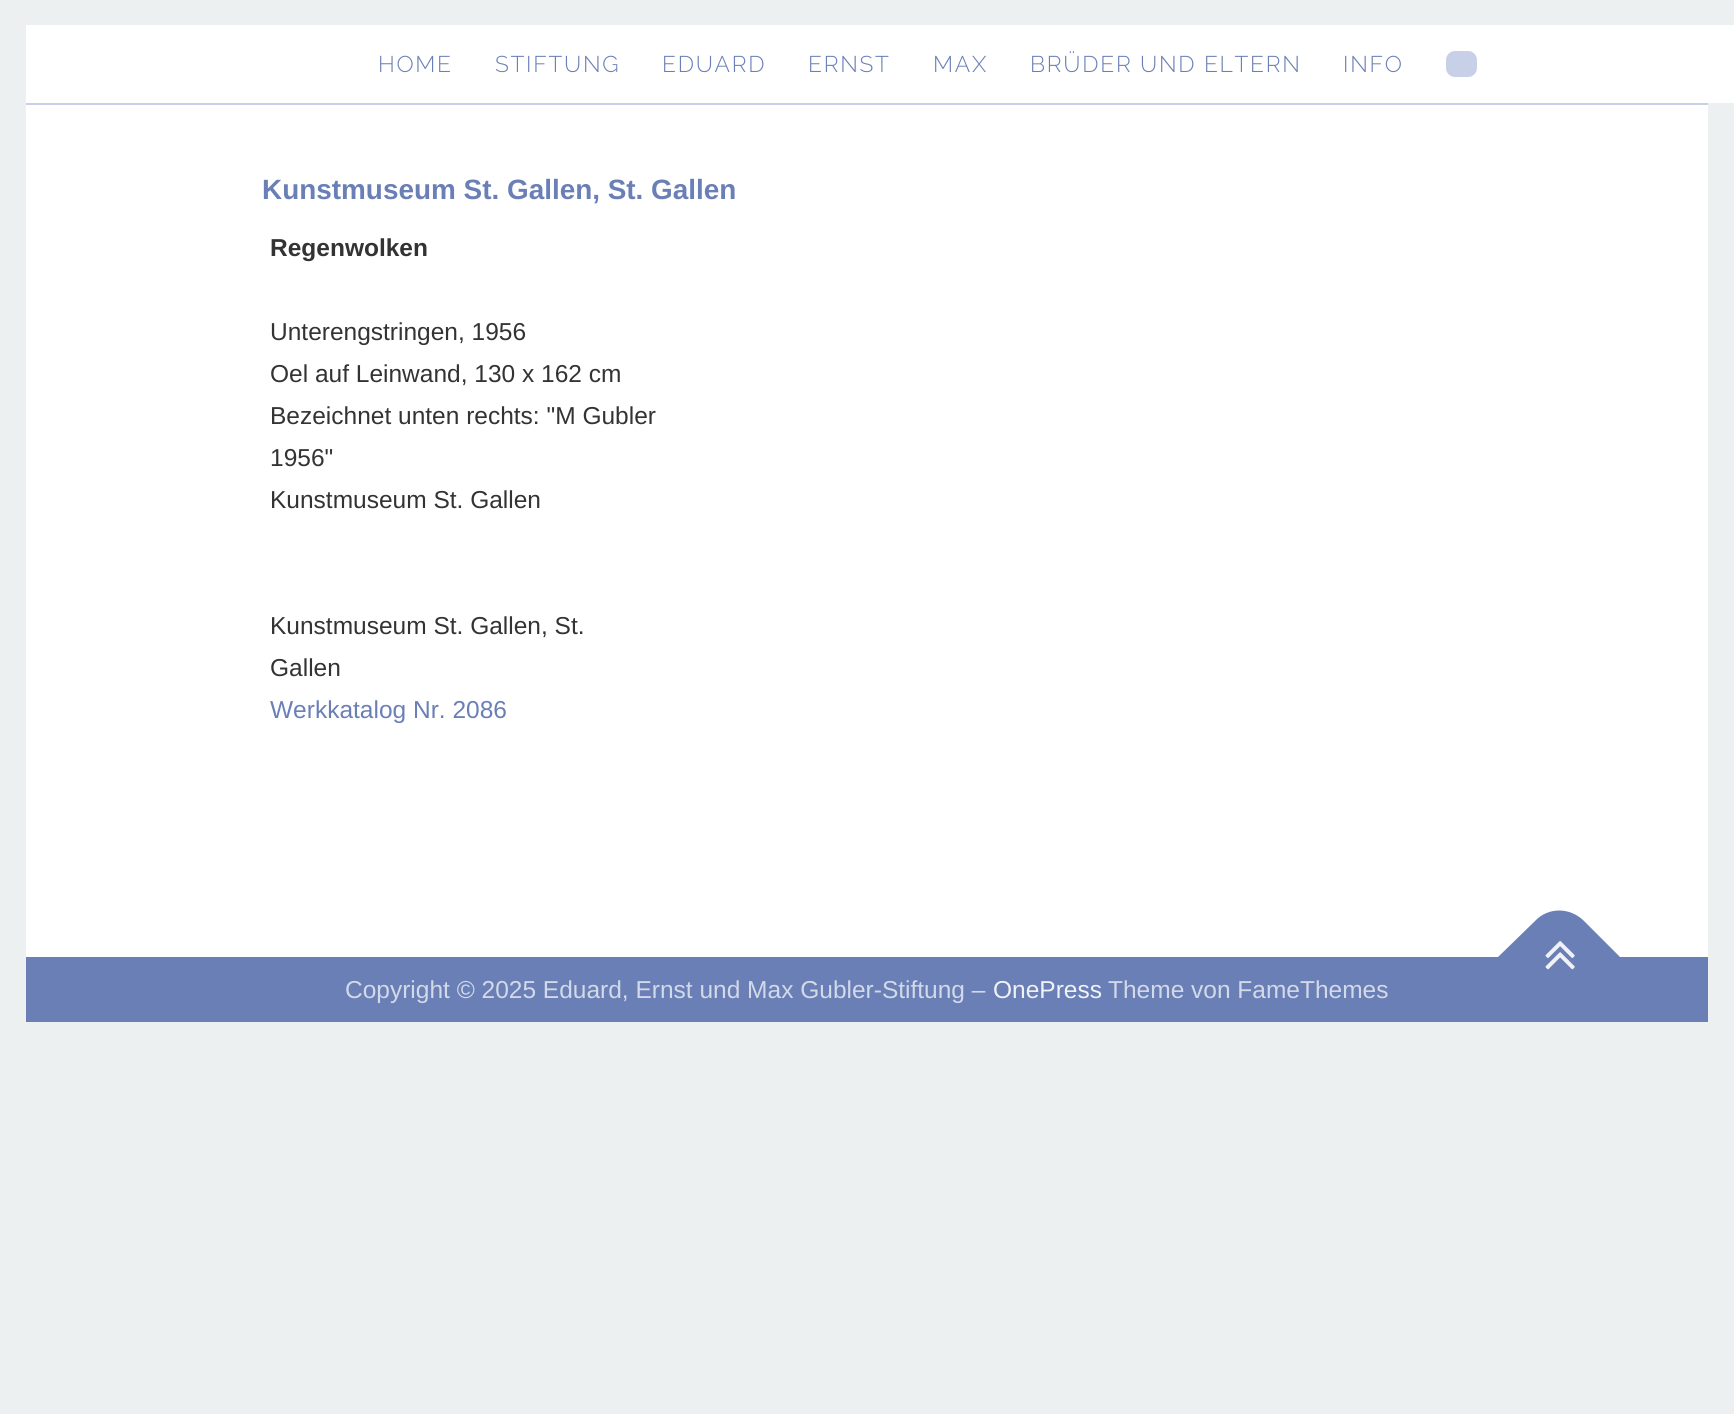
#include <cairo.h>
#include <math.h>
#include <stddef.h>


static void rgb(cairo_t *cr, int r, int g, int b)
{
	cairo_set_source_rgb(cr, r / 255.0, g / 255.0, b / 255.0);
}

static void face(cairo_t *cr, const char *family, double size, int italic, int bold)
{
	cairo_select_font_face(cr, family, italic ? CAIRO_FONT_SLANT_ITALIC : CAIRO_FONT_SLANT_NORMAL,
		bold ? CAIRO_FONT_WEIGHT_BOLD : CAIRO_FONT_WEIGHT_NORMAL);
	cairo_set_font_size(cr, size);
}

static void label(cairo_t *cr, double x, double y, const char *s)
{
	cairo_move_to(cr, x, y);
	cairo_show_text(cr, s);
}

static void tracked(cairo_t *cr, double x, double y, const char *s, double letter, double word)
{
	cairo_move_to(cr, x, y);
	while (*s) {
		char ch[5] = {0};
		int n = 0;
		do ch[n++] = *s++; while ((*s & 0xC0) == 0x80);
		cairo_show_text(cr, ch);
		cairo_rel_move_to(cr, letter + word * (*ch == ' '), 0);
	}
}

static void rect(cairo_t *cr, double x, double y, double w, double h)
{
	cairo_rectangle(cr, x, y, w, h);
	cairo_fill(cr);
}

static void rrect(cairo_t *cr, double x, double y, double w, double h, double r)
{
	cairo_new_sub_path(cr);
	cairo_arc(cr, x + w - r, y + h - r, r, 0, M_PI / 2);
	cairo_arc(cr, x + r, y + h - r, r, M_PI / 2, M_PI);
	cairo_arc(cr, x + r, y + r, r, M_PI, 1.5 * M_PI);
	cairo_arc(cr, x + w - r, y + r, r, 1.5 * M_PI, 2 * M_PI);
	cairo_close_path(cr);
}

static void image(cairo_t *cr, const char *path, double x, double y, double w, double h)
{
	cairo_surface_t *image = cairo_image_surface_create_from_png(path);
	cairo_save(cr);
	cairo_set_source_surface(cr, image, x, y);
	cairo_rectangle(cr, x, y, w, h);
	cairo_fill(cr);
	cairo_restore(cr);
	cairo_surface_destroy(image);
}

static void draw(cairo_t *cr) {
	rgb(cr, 236, 240, 241);
	cairo_paint(cr);
	rgb(cr, 255, 255, 255);
	rect(cr, 26, 105, 1682, 852);
	rect(cr, 26, 25, 1708, 78);
	face(cr, "Raleway Light", 22.75, 0, 0);
	rgb(cr, 106, 127, 182);
	tracked(cr, 378, 72, "HOME", 1.75, 0);
	tracked(cr, 495, 72, "STIFTUNG", 1.75, 0);
	tracked(cr, 662, 72, "EDUARD", 1.75, 0);
	tracked(cr, 808, 72, "ERNST", 1.75, 0);
	tracked(cr, 933, 72, "MAX", 1.75, 0);
	tracked(cr, 1030, 72, "BRÜDER UND ELTERN", 1.75, 0);
	tracked(cr, 1343, 72, "INFO", 1.75, 0);
	rgb(cr, 200, 208, 231);
	rrect(cr, 1446, 51, 31, 26, 9);
	cairo_fill(cr);
	rgb(cr, 200, 208, 232);
	rect(cr, 26, 103, 1682, 2);
	face(cr, "Liberation Sans", 27.9, 0, 1);
	rgb(cr, 106, 127, 182);
	label(cr, 262, 199, "Kunstmuseum St. Gallen, St. Gallen");
	face(cr, "Liberation Sans", 24.5, 0, 1);
	rgb(cr, 51, 51, 51);
	label(cr, 270, 256, "Regenwolken");
	face(cr, "Liberation Sans", 24.5, 0, 0);
	label(cr, 270, 340, "Unterengstringen, 1956");
	label(cr, 270, 382, "Oel auf Leinwand, 130 x 162 cm");
	label(cr, 270, 424, "Bezeichnet unten rechts: \"M Gubler");
	label(cr, 270, 466, "1956\"");
	label(cr, 270, 508, "Kunstmuseum St. Gallen");
	label(cr, 270, 634, "Kunstmuseum St. Gallen, St.");
	label(cr, 270, 676, "Gallen");
	rgb(cr, 106, 127, 182);
	label(cr, 270, 718, "Werkkatalog Nr. 2086");
	rect(cr, 26, 957, 1682, 65);
	rgb(cr, 210, 217, 233);
	label(cr, 345, 998, "Copyright © 2025 Eduard, Ernst und Max Gubler-Stiftung –");
	rgb(cr, 240, 242, 248);
	label(cr, 993, 998, "OnePress");
	rgb(cr, 210, 217, 233);
	label(cr, 1108, 998, "Theme von FameThemes");
	rgb(cr, 106, 127, 182);
	cairo_new_path(cr);
	cairo_move_to(cr, 1497, 958);
	cairo_line_to(cr, 1535, 921);
	cairo_curve_to(cr, 1548, 907, 1570, 907, 1584, 921);
	cairo_line_to(cr, 1621, 958);
	cairo_line_to(cr, 1559, 1020);
	cairo_close_path(cr);
	cairo_fill(cr);
	image(cr, "image0.png", 1545, 941, 30, 29);
}

int main(void) {
	cairo_surface_t *surface = cairo_image_surface_create(CAIRO_FORMAT_RGB24, 1734, 1414);
	cairo_t *cr = cairo_create(surface);
	cairo_font_options_t *options = cairo_font_options_create();
	cairo_font_options_set_hint_metrics(options, CAIRO_HINT_METRICS_OFF);
	cairo_font_options_set_hint_style(options, CAIRO_HINT_STYLE_NONE);
	cairo_set_font_options(cr, options);
	cairo_set_miter_limit(cr, 4);
	draw(cr);
	cairo_surface_write_to_png(surface, "render.png");
	cairo_font_options_destroy(options);
	cairo_destroy(cr);
	cairo_surface_destroy(surface);
	return 0;
}
